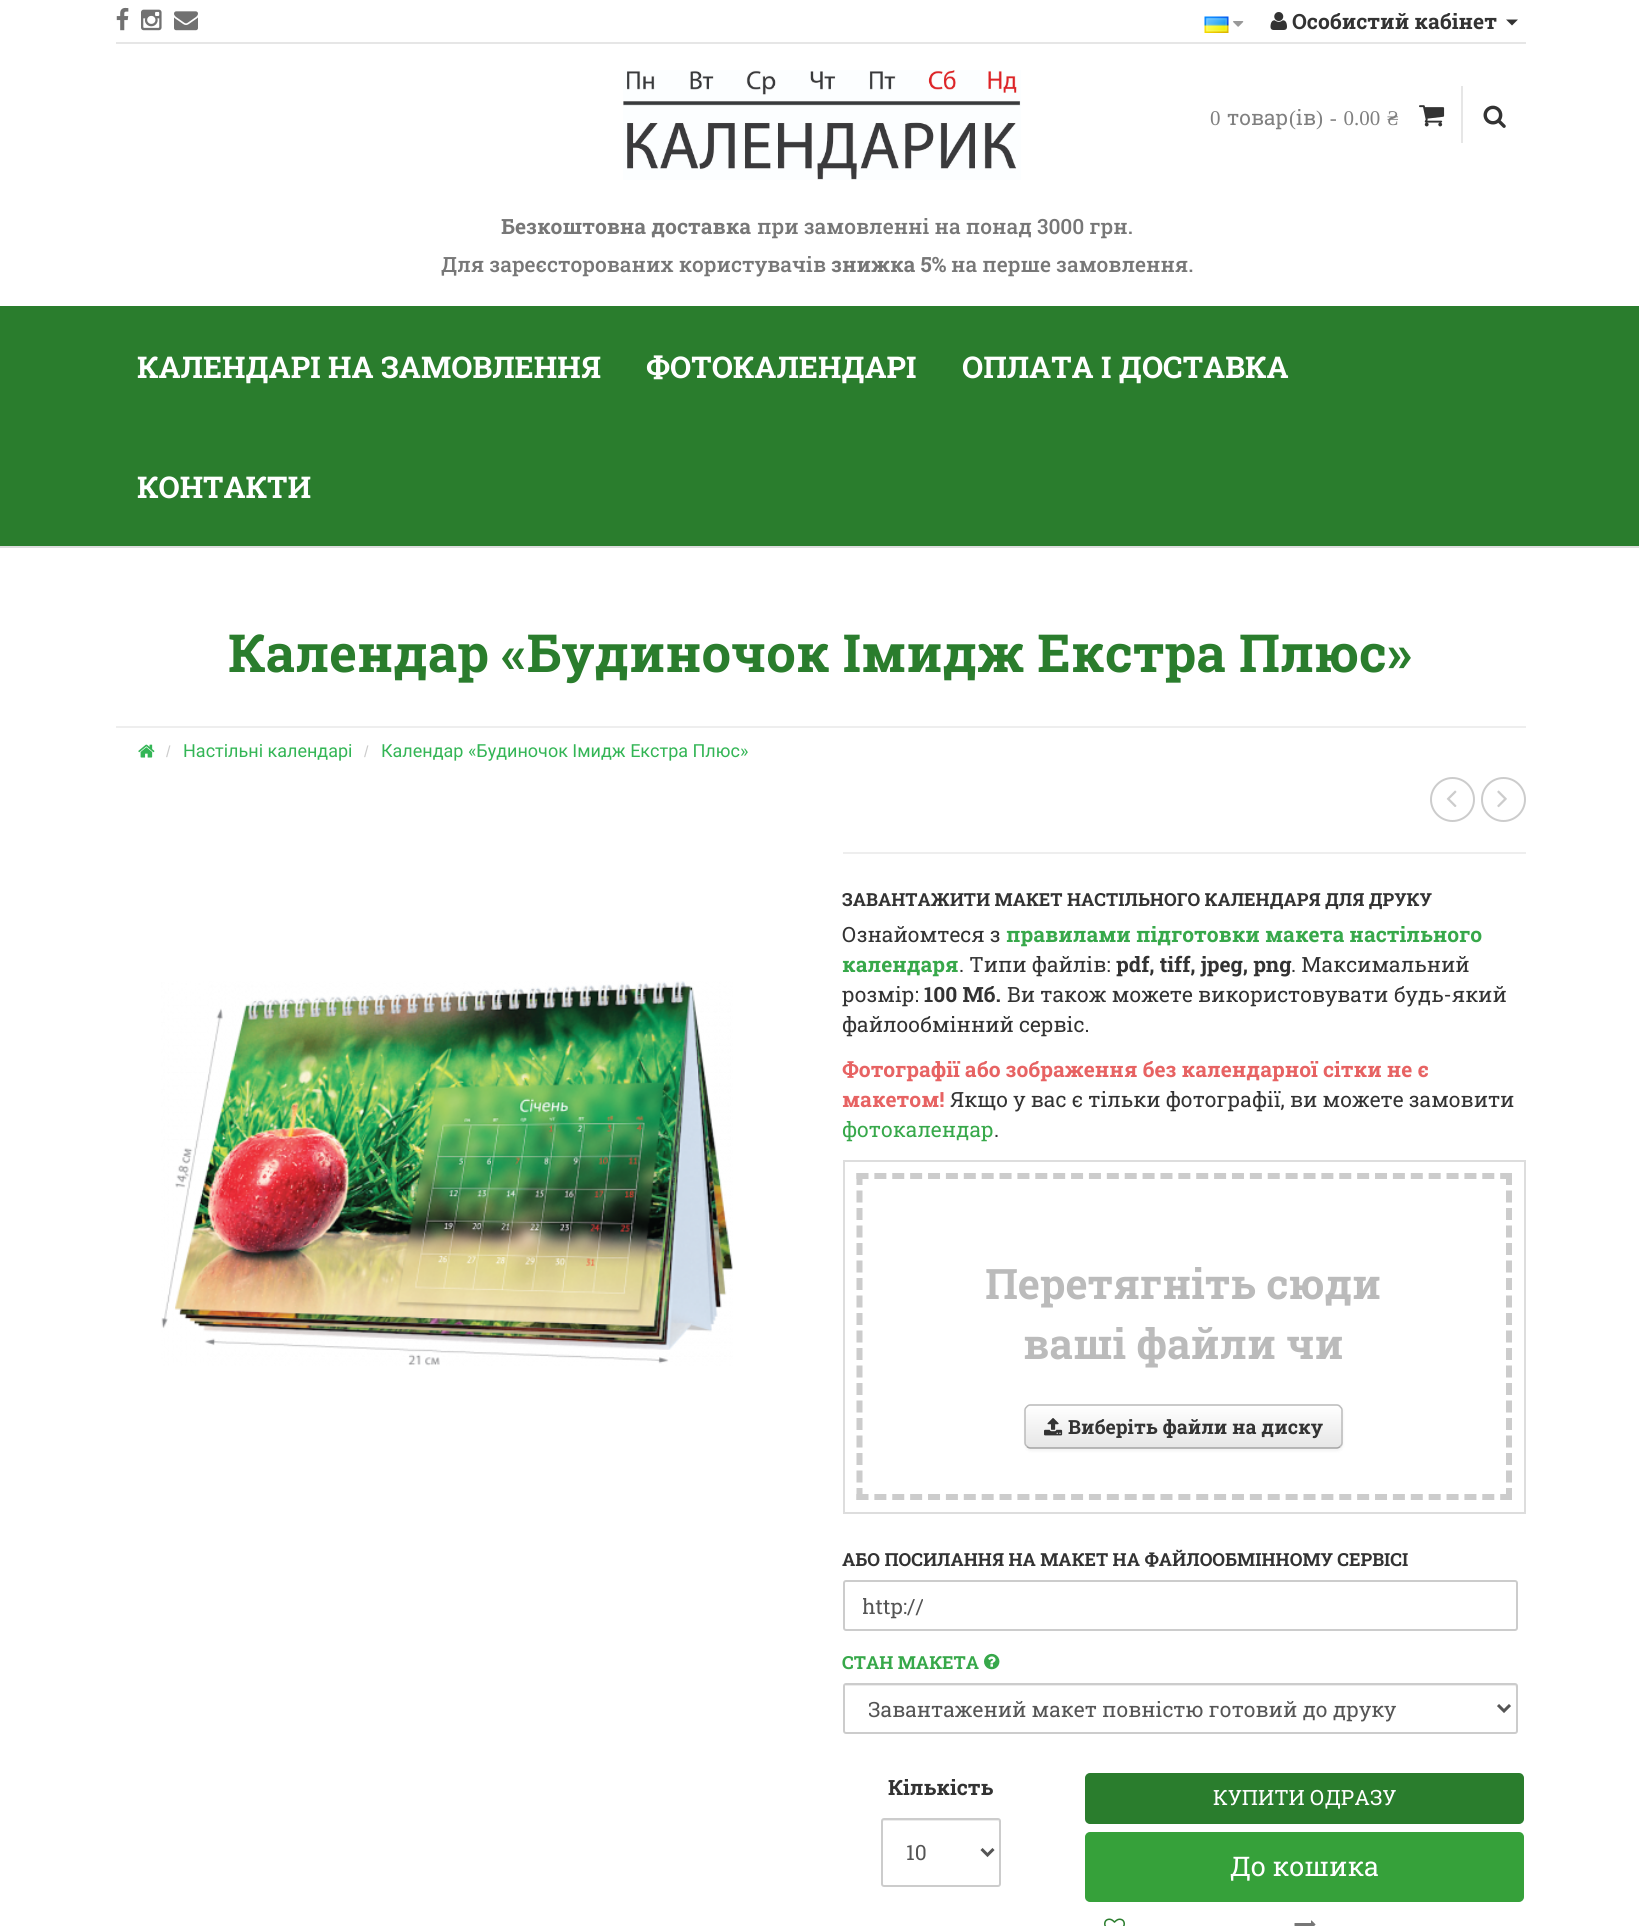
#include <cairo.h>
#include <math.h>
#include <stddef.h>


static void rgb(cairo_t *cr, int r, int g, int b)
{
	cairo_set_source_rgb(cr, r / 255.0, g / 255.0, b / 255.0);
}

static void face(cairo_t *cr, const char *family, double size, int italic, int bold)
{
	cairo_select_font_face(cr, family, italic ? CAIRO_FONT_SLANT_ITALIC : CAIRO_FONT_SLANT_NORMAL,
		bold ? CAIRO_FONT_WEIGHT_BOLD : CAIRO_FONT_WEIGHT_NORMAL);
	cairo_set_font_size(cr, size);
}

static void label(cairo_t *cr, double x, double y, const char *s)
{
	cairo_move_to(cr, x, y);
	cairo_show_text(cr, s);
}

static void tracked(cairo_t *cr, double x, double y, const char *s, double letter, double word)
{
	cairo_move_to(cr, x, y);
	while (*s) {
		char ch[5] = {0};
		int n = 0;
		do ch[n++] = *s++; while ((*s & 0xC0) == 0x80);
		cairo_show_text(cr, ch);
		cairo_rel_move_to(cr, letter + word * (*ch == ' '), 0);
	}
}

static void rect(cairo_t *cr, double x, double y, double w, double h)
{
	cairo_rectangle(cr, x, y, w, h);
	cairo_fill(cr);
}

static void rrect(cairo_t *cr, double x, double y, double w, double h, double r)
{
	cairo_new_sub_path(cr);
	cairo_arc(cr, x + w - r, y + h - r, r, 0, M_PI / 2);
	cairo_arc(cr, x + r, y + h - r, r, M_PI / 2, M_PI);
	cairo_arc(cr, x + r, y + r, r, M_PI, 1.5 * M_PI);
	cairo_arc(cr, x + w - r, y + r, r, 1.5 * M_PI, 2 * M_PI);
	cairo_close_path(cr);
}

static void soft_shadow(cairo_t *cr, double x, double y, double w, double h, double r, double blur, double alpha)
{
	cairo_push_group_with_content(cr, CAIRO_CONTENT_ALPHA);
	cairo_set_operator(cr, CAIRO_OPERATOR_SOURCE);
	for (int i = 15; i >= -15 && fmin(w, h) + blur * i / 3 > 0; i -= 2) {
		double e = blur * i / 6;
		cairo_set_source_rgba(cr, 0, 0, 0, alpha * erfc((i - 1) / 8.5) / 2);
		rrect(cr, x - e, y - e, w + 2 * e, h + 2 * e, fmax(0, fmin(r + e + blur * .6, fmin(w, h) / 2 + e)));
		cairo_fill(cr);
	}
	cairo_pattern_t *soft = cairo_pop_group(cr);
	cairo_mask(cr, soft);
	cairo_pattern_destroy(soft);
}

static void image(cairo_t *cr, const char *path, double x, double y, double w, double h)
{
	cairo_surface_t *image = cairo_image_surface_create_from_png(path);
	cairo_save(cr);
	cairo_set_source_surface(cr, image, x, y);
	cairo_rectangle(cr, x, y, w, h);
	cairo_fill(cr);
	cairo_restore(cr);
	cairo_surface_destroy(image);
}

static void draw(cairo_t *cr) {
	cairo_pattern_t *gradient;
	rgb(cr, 255, 255, 255);
	cairo_paint(cr);
	rgb(cr, 230, 230, 230);
	rect(cr, 116, 42, 1410, 2);
	image(cr, "image0.png", 116, 7, 13, 24);
	image(cr, "image1.png", 141, 9, 21, 22);
	image(cr, "image2.png", 174, 11, 24, 20);
	image(cr, "image3.png", 1204, 16, 25, 17);
	image(cr, "image4.png", 1233, 21, 11, 6);
	image(cr, "image5.png", 1270, 12, 17, 18);
	face(cr, "Roboto Slab", 21, 0, 1);
	rgb(cr, 51, 51, 51);
	label(cr, 1292, 29, "Особистий кабінет");
	cairo_new_path(cr);
	cairo_move_to(cr, 1506, 19.5);
	cairo_line_to(cr, 1518, 19.5);
	cairo_line_to(cr, 1512, 25.5);
	cairo_close_path(cr);
	cairo_fill(cr);
	image(cr, "image6.png", 623, 70, 398, 110);
	face(cr, "Liberation Serif", 21, 0, 0);
	rgb(cr, 128, 128, 128);
	label(cr, 1210, 125, "0");
	face(cr, "Roboto Slab", 21, 0, 0);
	label(cr, 1227, 125, "товар");
	face(cr, "Liberation Serif", 21, 0, 0);
	label(cr, 1289, 125, "(");
	face(cr, "Roboto Slab", 21, 0, 0);
	label(cr, 1296, 125, "ів");
	face(cr, "Liberation Serif", 21, 0, 0);
	tracked(cr, 1316, 125, ") - 0.00 ₴", 0, 1.5);
	image(cr, "image7.png", 1419, 105, 26, 22);
	rgb(cr, 230, 230, 230);
	rect(cr, 1461, 86, 2, 57);
	image(cr, "image8.png", 1483, 105, 23, 23);
	face(cr, "Roboto Slab", 21, 0, 1);
	rgb(cr, 119, 119, 119);
	label(cr, 501, 234, "Безкоштовна доставка");
	face(cr, "Roboto Slab Medium", 21, 0, 0);
	label(cr, 757, 234, "при замовленні на понад 3000 грн.");
	label(cr, 441, 272, "Для зареєсторованих користувачів");
	face(cr, "Roboto Slab", 21, 0, 1);
	label(cr, 831, 272, "знижка 5%");
	face(cr, "Roboto Slab Medium", 21, 0, 0);
	label(cr, 951, 272, "на перше замовлення.");
	rgb(cr, 42, 125, 45);
	rect(cr, 0, 306, 1639, 240);
	face(cr, "Roboto Slab", 30, 0, 1);
	rgb(cr, 255, 255, 255);
	label(cr, 137, 378, "КАЛЕНДАРІ НА ЗАМОВЛЕННЯ");
	label(cr, 646, 378, "ФОТОКАЛЕНДАРІ");
	label(cr, 962, 378, "ОПЛАТА І ДОСТАВКА");
	label(cr, 137, 498, "КОНТАКТИ");
	rgb(cr, 221, 221, 221);
	rect(cr, 0, 546, 1639, 2);
	rgb(cr, 238, 238, 238);
	rect(cr, 116, 726, 1410, 2);
	face(cr, "Roboto Slab", 52.5, 0, 1);
	rgb(cr, 42, 125, 45);
	label(cr, 228, 672, "Календар «Будиночок Імидж Екстра Плюс»");
	image(cr, "image9.png", 138, 744, 17, 14);
	face(cr, "Liberation Sans", 16, 0, 0);
	rgb(cr, 204, 204, 204);
	label(cr, 166, 757, "/");
	face(cr, "Roboto", 18, 0, 0);
	rgb(cr, 51, 181, 85);
	label(cr, 183, 757, "Настільні календарі");
	face(cr, "Liberation Sans", 16, 0, 0);
	rgb(cr, 204, 204, 204);
	label(cr, 364, 757, "/");
	face(cr, "Roboto", 18, 0, 0);
	rgb(cr, 51, 181, 85);
	label(cr, 381, 757, "Календар «Будиночок Імидж Екстра Плюс»");
	cairo_new_path(cr);
	cairo_arc(cr, 1452.5, 799.5, 21.5, 0, 2 * M_PI);
	rgb(cr, 204, 204, 204);
	cairo_stroke(cr);
	image(cr, "image10.png", 1446, 790, 11, 17);
	cairo_arc(cr, 1503.5, 799.5, 21.5, 0, 2 * M_PI);
	cairo_stroke(cr);
	image(cr, "image11.png", 1497, 790, 10, 18);
	image(cr, "image12.png", 161, 981, 572, 385);
	rgb(cr, 238, 238, 238);
	rect(cr, 843, 852, 683, 2);
	face(cr, "Roboto Slab", 18, 0, 1);
	rgb(cr, 51, 51, 51);
	label(cr, 842, 906, "ЗАВАНТАЖИТИ МАКЕТ НАСТІЛЬНОГО КАЛЕНДАРЯ ДЛЯ ДРУКУ");
	face(cr, "Roboto Slab", 21, 0, 0);
	label(cr, 842, 942, "Ознайомтеся з");
	face(cr, "Roboto Slab", 21, 0, 1);
	rgb(cr, 55, 168, 74);
	label(cr, 1006, 942, "правилами підготовки макета настільного");
	label(cr, 842, 972, "календаря");
	face(cr, "Roboto Slab", 21, 0, 0);
	rgb(cr, 51, 51, 51);
	label(cr, 959, 972, ". Типи файлів:");
	face(cr, "Roboto Slab", 21, 0, 1);
	label(cr, 1116, 972, "pdf, tiff, jpeg, png");
	face(cr, "Roboto Slab", 21, 0, 0);
	label(cr, 1291, 972, ". Максимальний");
	label(cr, 842, 1002, "розмір:");
	face(cr, "Roboto Slab", 21, 0, 1);
	label(cr, 924, 1002, "100 Мб.");
	face(cr, "Roboto Slab", 21, 0, 0);
	label(cr, 1007, 1002, "Ви також можете використовувати будь-який");
	label(cr, 842, 1032, "файлообмінний сервіс.");
	face(cr, "Roboto Slab", 21, 0, 1);
	rgb(cr, 231, 99, 99);
	label(cr, 842, 1077, "Фотографії або зображення без календарної сітки не є");
	label(cr, 842, 1107, "макетом!");
	face(cr, "Roboto Slab", 21, 0, 0);
	rgb(cr, 51, 51, 51);
	label(cr, 950, 1107, "Якщо у вас є тільки фотографії, ви можете замовити");
	rgb(cr, 55, 168, 74);
	label(cr, 842, 1137, "фотокалендар");
	rgb(cr, 51, 51, 51);
	label(cr, 994, 1137, ".");
	rgb(cr, 221, 221, 221);
	rect(cr, 843, 1160, 683, 2);
	rect(cr, 1524, 1160, 2, 354);
	rect(cr, 843, 1512, 683, 2);
	rect(cr, 843, 1160, 2, 354);
	cairo_new_path(cr);
	cairo_move_to(cr, 856.5, 1176);
	cairo_line_to(cr, 1512, 1176);
	rgb(cr, 204, 204, 204);
	cairo_set_line_width(cr, 6);
	cairo_set_dash(cr, (double[]){12, 5.88}, 2, 0);
	cairo_stroke(cr);
	cairo_new_path(cr);
	cairo_move_to(cr, 1509, 1173);
	cairo_line_to(cr, 1509, 1500);
	cairo_set_dash(cr, (double[]){12, 5.5}, 2, 0);
	cairo_stroke(cr);
	cairo_new_path(cr);
	cairo_move_to(cr, 856.5, 1497);
	cairo_line_to(cr, 1512, 1497);
	cairo_set_dash(cr, (double[]){12, 5.88}, 2, 0);
	cairo_stroke(cr);
	cairo_new_path(cr);
	cairo_move_to(cr, 859.5, 1173);
	cairo_line_to(cr, 859.5, 1500);
	cairo_set_dash(cr, (double[]){12, 5.5}, 2, 0);
	cairo_stroke(cr);
	face(cr, "Roboto Slab", 42, 0, 1);
	rgb(cr, 187, 187, 187);
	label(cr, 985, 1299, "Перетягніть сюди");
	label(cr, 1023, 1359, "ваші файли чи");
	rgb(cr, 0, 0, 0);
	soft_shadow(cr, 1025, 1406, 318, 45, 6, 1.5, 0.05);
	rgb(cr, 245, 245, 245);
	rrect(cr, 1025, 1404, 318, 45, 6);
	cairo_fill(cr);
	cairo_save(cr);
	rrect(cr, 1025, 1404, 318, 45, 6);
	cairo_clip(cr);
	gradient = cairo_pattern_create_linear(1184, 1406, 1184, 1448);
	cairo_pattern_add_color_stop_rgba(gradient, 0, 1, 1, 1, 1);
	cairo_pattern_add_color_stop_rgba(gradient, 1, 0.902, 0.902, 0.902, 1);
	cairo_set_source(cr, gradient);
	cairo_pattern_destroy(gradient);
	rect(cr, 1025, 1406, 318, 42);
	cairo_restore(cr);
	cairo_new_path(cr);
	cairo_move_to(cr, 1340, 1446.5);
	cairo_curve_to(cr, 1339, 1447.5, 1338, 1448, 1336.5, 1448);
	cairo_line_to(cr, 1030.5, 1448);
	cairo_curve_to(cr, 1029, 1448, 1028, 1447.5, 1027, 1446.5);
	rgb(cr, 162, 162, 162);
	cairo_set_line_width(cr, 1.5);
	cairo_set_dash(cr, NULL, 0, 0);
	cairo_stroke(cr);
	cairo_new_path(cr);
	cairo_move_to(cr, 1027, 1446.5);
	cairo_curve_to(cr, 1026, 1445.5, 1025, 1444.5, 1025, 1443);
	cairo_line_to(cr, 1025, 1410);
	cairo_curve_to(cr, 1025, 1408.5, 1026, 1407.5, 1027, 1406.5);
	cairo_curve_to(cr, 1028, 1405.5, 1029, 1405, 1030.5, 1405);
	cairo_line_to(cr, 1336.5, 1405);
	cairo_curve_to(cr, 1338, 1405, 1339, 1405.5, 1340, 1406.5);
	cairo_curve_to(cr, 1341, 1407.5, 1342, 1408.5, 1342, 1410);
	cairo_line_to(cr, 1342, 1443);
	cairo_curve_to(cr, 1342, 1444.5, 1341, 1445.5, 1340, 1446.5);
	rgb(cr, 187, 187, 187);
	cairo_stroke(cr);
	image(cr, "image13.png", 1044, 1418, 19, 18);
	face(cr, "Roboto Slab", 19.5, 0, 1);
	rgb(cr, 51, 51, 51);
	label(cr, 1068, 1434, "Виберіть файли на диску");
	face(cr, "Roboto Slab", 18, 0, 1);
	label(cr, 842, 1566, "АБО ПОСИЛАННЯ НА МАКЕТ НА ФАЙЛООБМІННОМУ СЕРВІСІ");
	rrect(cr, 844, 1581, 673, 49, 2);
	rgb(cr, 204, 204, 204);
	cairo_set_line_width(cr, 2);
	cairo_stroke(cr);
	cairo_save(cr);
	cairo_rectangle(cr, 863, 1592, 636, 28);
	cairo_clip(cr);
	face(cr, "Roboto Slab", 21, 0, 0);
	rgb(cr, 85, 85, 85);
	label(cr, 862, 1614, "http://");
	cairo_restore(cr);
	rgb(cr, 55, 168, 74);
	label(cr, 842, 1669, "СТАН МАКЕТА");
	image(cr, "image14.png", 984, 1653, 16, 17);
	rgb(cr, 236, 236, 236);
	cairo_new_path(cr);
	cairo_move_to(cr, 846, 1686);
	cairo_line_to(cr, 1515, 1686);
	cairo_curve_to(cr, 1517, 1686, 1516, 1699, 1516, 1703);
	cairo_line_to(cr, 1516, 1733);
	cairo_line_to(cr, 1517, 1732);
	cairo_line_to(cr, 1517, 1686);
	cairo_line_to(cr, 1516, 1685);
	cairo_line_to(cr, 846, 1685);
	cairo_curve_to(cr, 846, 1685, 845, 1686, 845, 1686);
	cairo_close_path(cr);
	cairo_fill(cr);
	rrect(cr, 844, 1684, 673, 49, 2);
	rgb(cr, 204, 204, 204);
	cairo_stroke(cr);
	cairo_new_path(cr);
	cairo_move_to(cr, 1498, 1705);
	cairo_line_to(cr, 1504, 1711);
	cairo_line_to(cr, 1510, 1705);
	rgb(cr, 85, 85, 85);
	cairo_set_line_width(cr, 3);
	cairo_stroke(cr);
	cairo_save(cr);
	cairo_rectangle(cr, 869, 1694, 606, 31);
	cairo_clip(cr);
	face(cr, "Roboto Slab", 21, 0, 0);
	label(cr, 868, 1717, "Завантажений макет повністю готовий до друку");
	cairo_restore(cr);
	face(cr, "Roboto Slab", 21, 0, 1);
	rgb(cr, 51, 51, 51);
	label(cr, 888, 1795, "Кількість");
	rgb(cr, 236, 236, 236);
	cairo_new_path(cr);
	cairo_move_to(cr, 884, 1821);
	cairo_line_to(cr, 998, 1821);
	cairo_line_to(cr, 999, 1822);
	cairo_curve_to(cr, 999, 1821, 999, 1820, 998, 1820);
	cairo_line_to(cr, 884, 1820);
	cairo_curve_to(cr, 882, 1820, 882, 1821, 882, 1822);
	cairo_close_path(cr);
	cairo_fill(cr);
	rrect(cr, 882, 1819, 118, 67, 2);
	rgb(cr, 204, 204, 204);
	cairo_set_line_width(cr, 2);
	cairo_stroke(cr);
	cairo_new_path(cr);
	cairo_move_to(cr, 981.5, 1849);
	cairo_line_to(cr, 987.5, 1855);
	cairo_line_to(cr, 993.5, 1849);
	rgb(cr, 85, 85, 85);
	cairo_set_line_width(cr, 3);
	cairo_stroke(cr);
	face(cr, "Roboto Slab", 21, 0, 0);
	label(cr, 906, 1860, "10");
	rgb(cr, 42, 125, 45);
	rrect(cr, 1086, 1774, 437, 49, 4);
	cairo_fill_preserve(cr);
	cairo_set_line_width(cr, 2);
	cairo_stroke(cr);
	rgb(cr, 255, 255, 255);
	label(cr, 1213, 1805, "КУПИТИ ОДРАЗУ");
	rgb(cr, 54, 161, 58);
	rrect(cr, 1086, 1833, 437, 68, 4);
	cairo_fill_preserve(cr);
	cairo_stroke(cr);
	face(cr, "Roboto Slab", 27, 0, 0);
	rgb(cr, 255, 255, 255);
	label(cr, 1230, 1876, "До кошика");
	image(cr, "image15.png", 1104, 1918, 21, 8);
	image(cr, "image16.png", 1294, 1920, 22, 6);
}

int main(void) {
	cairo_surface_t *surface = cairo_image_surface_create(CAIRO_FORMAT_RGB24, 1639, 1926);
	cairo_t *cr = cairo_create(surface);
	cairo_font_options_t *options = cairo_font_options_create();
	cairo_font_options_set_hint_metrics(options, CAIRO_HINT_METRICS_OFF);
	cairo_font_options_set_hint_style(options, CAIRO_HINT_STYLE_NONE);
	cairo_set_font_options(cr, options);
	cairo_set_miter_limit(cr, 4);
	draw(cr);
	cairo_surface_write_to_png(surface, "render.png");
	cairo_font_options_destroy(options);
	cairo_destroy(cr);
	cairo_surface_destroy(surface);
	return 0;
}
